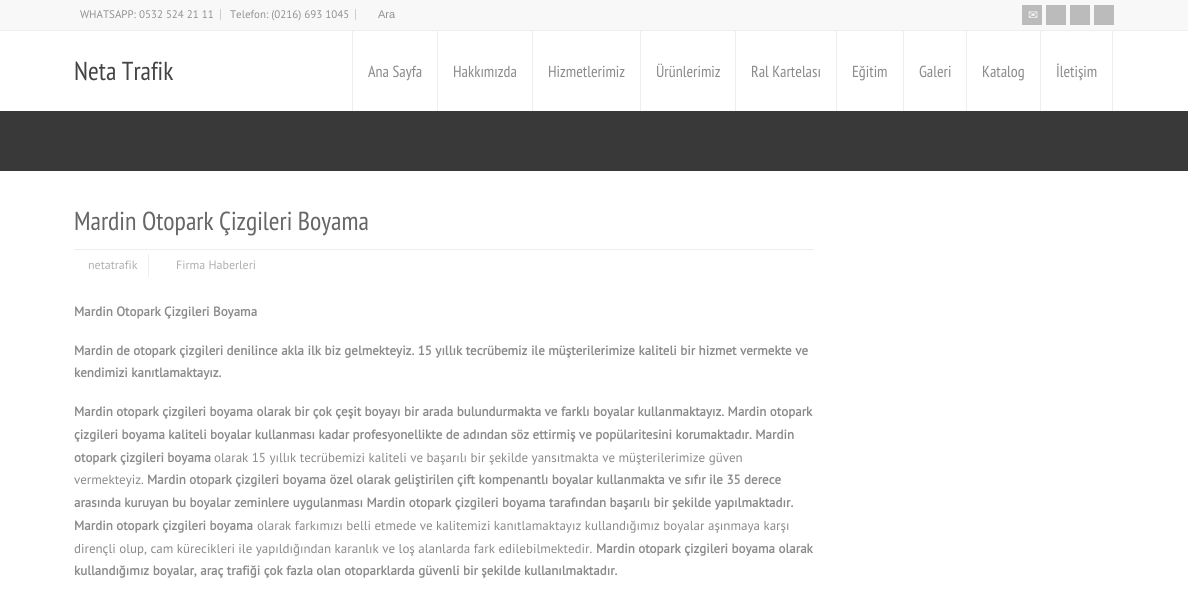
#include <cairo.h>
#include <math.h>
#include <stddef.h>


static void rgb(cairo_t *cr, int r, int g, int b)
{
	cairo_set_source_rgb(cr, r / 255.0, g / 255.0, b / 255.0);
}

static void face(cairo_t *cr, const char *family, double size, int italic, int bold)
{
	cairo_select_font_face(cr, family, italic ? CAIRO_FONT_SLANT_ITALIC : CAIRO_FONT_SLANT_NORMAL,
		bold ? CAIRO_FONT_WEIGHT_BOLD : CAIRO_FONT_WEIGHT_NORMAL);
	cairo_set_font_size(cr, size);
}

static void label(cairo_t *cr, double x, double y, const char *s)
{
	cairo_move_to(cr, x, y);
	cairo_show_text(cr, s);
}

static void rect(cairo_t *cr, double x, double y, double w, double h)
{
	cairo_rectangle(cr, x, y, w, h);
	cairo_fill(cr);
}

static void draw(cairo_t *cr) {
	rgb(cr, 255, 255, 255);
	cairo_paint(cr);
	rgb(cr, 248, 248, 248);
	rect(cr, 0, 0, 1188, 30);
	rgb(cr, 238, 238, 238);
	rect(cr, 0, 30, 1188, 1);
	rgb(cr, 205, 205, 205);
	rect(cr, 220, 9, 1, 11);
	face(cr, "PT Sans", 11, 0, 0);
	rgb(cr, 145, 145, 145);
	label(cr, 80, 18, "WHATSAPP: 0532 524 21 11");
	rgb(cr, 205, 205, 205);
	rect(cr, 355, 9, 1, 11);
	rgb(cr, 145, 145, 145);
	label(cr, 230, 18, "Telefon: (0216) 693 1045");
	face(cr, "Liberation Sans", 11, 0, 0);
	label(cr, 378, 18, "Ara");
	rgb(cr, 187, 187, 187);
	rect(cr, 1022, 5, 20, 20);
	face(cr, "DejaVu Sans", 12, 0, 0);
	rgb(cr, 255, 255, 255);
	label(cr, 1028, 19, "✉");
	rgb(cr, 187, 187, 187);
	rect(cr, 1046, 5, 20, 20);
	rect(cr, 1070, 5, 20, 20);
	rect(cr, 1094, 5, 20, 20);
	face(cr, "PT Sans Narrow", 26, 0, 0);
	rgb(cr, 68, 68, 68);
	label(cr, 74, 80, "Neta Trafik");
	rgb(cr, 238, 238, 238);
	rect(cr, 437, 31, 1, 80);
	rect(cr, 352, 31, 1, 80);
	face(cr, "PT Sans Narrow", 16, 0, 0);
	rgb(cr, 138, 138, 138);
	label(cr, 368, 77, "Ana Sayfa");
	rgb(cr, 238, 238, 238);
	rect(cr, 532, 31, 1, 80);
	rgb(cr, 138, 138, 138);
	label(cr, 453, 77, "Hakkımızda");
	rgb(cr, 238, 238, 238);
	rect(cr, 640, 31, 1, 80);
	rgb(cr, 138, 138, 138);
	label(cr, 548, 77, "Hizmetlerimiz");
	rgb(cr, 238, 238, 238);
	rect(cr, 735, 31, 1, 80);
	rgb(cr, 138, 138, 138);
	label(cr, 656, 77, "Ürünlerimiz");
	rgb(cr, 238, 238, 238);
	rect(cr, 836, 31, 1, 80);
	rgb(cr, 138, 138, 138);
	label(cr, 751, 77, "Ral Kartelası");
	rgb(cr, 238, 238, 238);
	rect(cr, 903, 31, 1, 80);
	rgb(cr, 138, 138, 138);
	label(cr, 852, 77, "Eğitim");
	rgb(cr, 238, 238, 238);
	rect(cr, 966, 31, 1, 80);
	rgb(cr, 138, 138, 138);
	label(cr, 919, 77, "Galeri");
	rgb(cr, 238, 238, 238);
	rect(cr, 1040, 31, 1, 80);
	rgb(cr, 138, 138, 138);
	label(cr, 982, 77, "Katalog");
	rgb(cr, 238, 238, 238);
	rect(cr, 1112, 31, 1, 80);
	rgb(cr, 138, 138, 138);
	label(cr, 1056, 77, "İletişim");
	rgb(cr, 58, 57, 57);
	rect(cr, 0, 111, 1188, 60);
	face(cr, "PT Sans Narrow", 26, 0, 0);
	rgb(cr, 102, 102, 102);
	label(cr, 74, 230, "Mardin Otopark Çizgileri Boyama");
	rgb(cr, 238, 238, 238);
	rect(cr, 74, 249, 740, 1);
	rect(cr, 148, 254, 1, 23);
	face(cr, "PT Sans", 12, 0, 0);
	rgb(cr, 175, 175, 175);
	label(cr, 88, 269, "netatrafik");
	label(cr, 176, 269, "Firma Haberleri");
	face(cr, "PT Sans", 13, 0, 1);
	rgb(cr, 138, 138, 138);
	label(cr, 74, 316, "Mardin Otopark Çizgileri Boyama");
	label(cr, 74, 355, "Mardin de otopark çizgileri denilince akla ilk biz gelmekteyiz. 15 yıllık tecrübemiz ile müşterilerimize kaliteli bir hizmet vermekte ve");
	label(cr, 74, 377, "kendimizi kanıtlamaktayız.");
	label(cr, 74, 416, "Mardin otopark çizgileri boyama olarak bir çok çeşit boyayı bir arada bulundurmakta ve farklı boyalar kullanmaktayız. Mardin otopark");
	label(cr, 74, 439, "çizgileri boyama kaliteli boyalar kullanması kadar profesyonellikte de adından söz ettirmiş ve popülaritesini korumaktadır. Mardin");
	label(cr, 74, 462, "otopark çizgileri boyama");
	face(cr, "PT Sans", 13, 0, 0);
	label(cr, 214, 462, "olarak 15 yıllık tecrübemizi kaliteli ve başarılı bir şekilde yansıtmakta ve müşterilerimize güven");
	label(cr, 74, 484, "vermekteyiz.");
	face(cr, "PT Sans", 13, 0, 1);
	label(cr, 147, 484, "Mardin otopark çizgileri boyama özel olarak geliştirilen çift kompenantlı boyalar kullanmakta ve sıfır ile 35 derece");
	label(cr, 74, 507, "arasında kuruyan bu boyalar zeminlere uygulanması Mardin otopark çizgileri boyama tarafından başarılı bir şekilde yapılmaktadır.");
	label(cr, 74, 530, "Mardin otopark çizgileri boyama");
	face(cr, "PT Sans", 13, 0, 0);
	label(cr, 257, 530, "olarak farkımızı belli etmede ve kalitemizi kanıtlamaktayız kullandığımız boyalar aşınmaya karşı");
	label(cr, 74, 553, "dirençli olup, cam kürecikleri ile yapıldığından karanlık ve loş alanlarda fark edilebilmektedir.");
	face(cr, "PT Sans", 13, 0, 1);
	label(cr, 596, 553, "Mardin otopark çizgileri boyama olarak");
	label(cr, 74, 575, "kullandığımız boyalar, araç trafiği çok fazla olan otoparklarda güvenli bir şekilde kullanılmaktadır.");
}

int main(void) {
	cairo_surface_t *surface = cairo_image_surface_create(CAIRO_FORMAT_RGB24, 1188, 604);
	cairo_t *cr = cairo_create(surface);
	cairo_font_options_t *options = cairo_font_options_create();
	cairo_font_options_set_hint_metrics(options, CAIRO_HINT_METRICS_OFF);
	cairo_font_options_set_hint_style(options, CAIRO_HINT_STYLE_NONE);
	cairo_set_font_options(cr, options);
	cairo_set_miter_limit(cr, 4);
	draw(cr);
	cairo_surface_write_to_png(surface, "render.png");
	cairo_font_options_destroy(options);
	cairo_destroy(cr);
	cairo_surface_destroy(surface);
	return 0;
}
